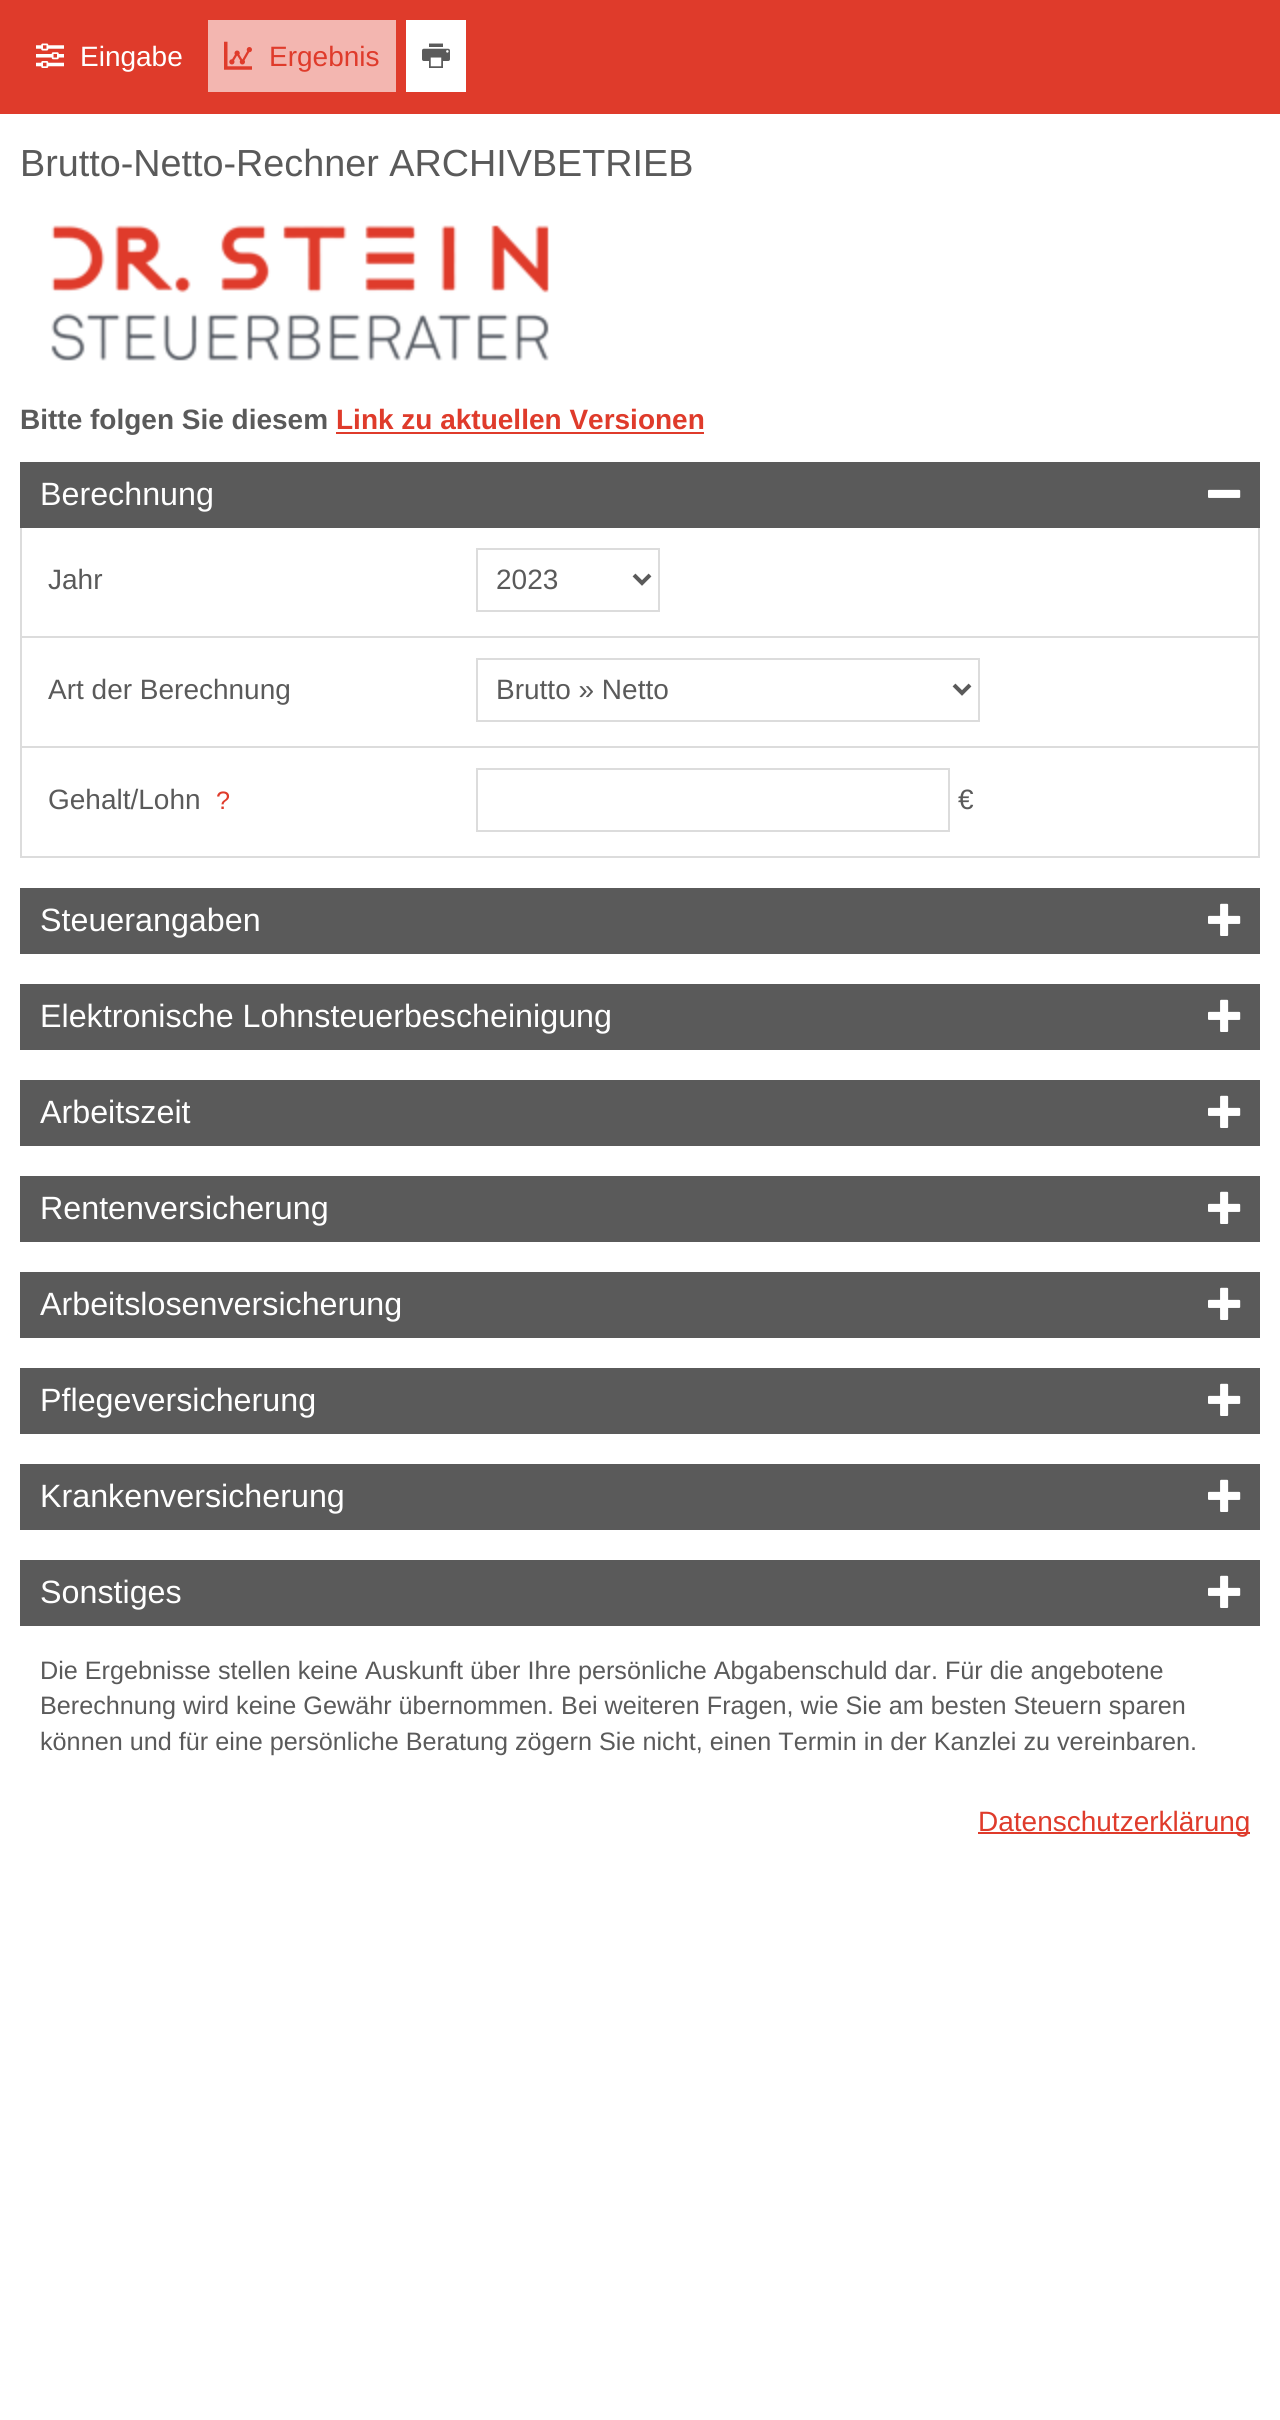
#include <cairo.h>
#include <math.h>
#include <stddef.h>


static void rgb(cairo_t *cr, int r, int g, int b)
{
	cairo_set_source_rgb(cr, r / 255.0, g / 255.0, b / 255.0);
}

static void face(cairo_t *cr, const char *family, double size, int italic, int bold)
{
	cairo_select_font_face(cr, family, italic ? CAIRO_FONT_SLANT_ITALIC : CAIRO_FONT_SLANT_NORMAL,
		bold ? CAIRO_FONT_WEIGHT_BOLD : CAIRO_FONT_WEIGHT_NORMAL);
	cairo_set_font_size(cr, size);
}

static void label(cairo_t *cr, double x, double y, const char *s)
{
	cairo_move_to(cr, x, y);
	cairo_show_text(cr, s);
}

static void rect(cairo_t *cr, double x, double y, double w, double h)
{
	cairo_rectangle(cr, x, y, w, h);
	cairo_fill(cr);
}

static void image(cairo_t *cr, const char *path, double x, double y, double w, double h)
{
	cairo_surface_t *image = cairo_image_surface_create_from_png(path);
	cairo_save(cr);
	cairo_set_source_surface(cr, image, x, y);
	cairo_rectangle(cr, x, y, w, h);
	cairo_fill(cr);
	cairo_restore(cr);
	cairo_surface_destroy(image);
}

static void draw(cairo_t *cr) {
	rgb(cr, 255, 255, 255);
	cairo_paint(cr);
	rgb(cr, 223, 59, 43);
	rect(cr, 0, 0, 1280, 114);
	image(cr, "image0.png", 36, 43, 28, 25);
	face(cr, "Liberation Sans", 28, 0, 0);
	rgb(cr, 255, 255, 255);
	label(cr, 80, 66, "Eingabe");
	rgb(cr, 243, 182, 176);
	rect(cr, 208, 20, 188, 72);
	image(cr, "image1.png", 224, 41, 28, 29);
	rgb(cr, 223, 59, 43);
	label(cr, 269, 66, "Ergebnis");
	rgb(cr, 255, 255, 255);
	rect(cr, 406, 20, 60, 72);
	image(cr, "image2.png", 422, 43, 28, 25);
	face(cr, "Liberation Sans", 37.75, 0, 0);
	rgb(cr, 90, 90, 90);
	label(cr, 20, 176, "Brutto-Netto-Rechner ARCHIVBETRIEB");
	image(cr, "image3.png", 51, 225, 498, 136);
	face(cr, "Liberation Sans", 28, 0, 1);
	label(cr, 20, 429, "Bitte folgen Sie diesem");
	rgb(cr, 223, 59, 43);
	label(cr, 336, 429, "Link zu aktuellen Versionen");
	rect(cr, 336, 432, 368, 2);
	rgb(cr, 90, 90, 90);
	rect(cr, 20, 462, 1240, 66);
	face(cr, "Liberation Sans", 32.25, 0, 0);
	rgb(cr, 255, 255, 255);
	label(cr, 40, 505, "Berechnung");
	image(cr, "image4.png", 1208, 489, 33, 9);
	rgb(cr, 220, 220, 220);
	rect(cr, 1258, 528, 2, 330);
	rect(cr, 20, 528, 2, 330);
	rect(cr, 22, 636, 1236, 2);
	face(cr, "Liberation Sans", 28, 0, 0);
	rgb(cr, 90, 90, 90);
	label(cr, 48, 589, "Jahr");
	cairo_rectangle(cr, 477, 549, 182, 62);
	rgb(cr, 220, 220, 220);
	cairo_stroke(cr);
	cairo_new_path(cr);
	cairo_move_to(cr, 634, 575);
	cairo_line_to(cr, 642, 583);
	cairo_line_to(cr, 650, 575);
	rgb(cr, 90, 90, 90);
	cairo_set_line_width(cr, 4);
	cairo_stroke(cr);
	label(cr, 496, 589, "2023");
	rgb(cr, 220, 220, 220);
	rect(cr, 22, 746, 1236, 2);
	rgb(cr, 90, 90, 90);
	label(cr, 48, 699, "Art der Berechnung");
	cairo_rectangle(cr, 477, 659, 502, 62);
	rgb(cr, 220, 220, 220);
	cairo_set_line_width(cr, 2);
	cairo_stroke(cr);
	cairo_new_path(cr);
	cairo_move_to(cr, 954, 685);
	cairo_line_to(cr, 962, 693);
	cairo_line_to(cr, 970, 685);
	rgb(cr, 90, 90, 90);
	cairo_set_line_width(cr, 4);
	cairo_stroke(cr);
	label(cr, 496, 699, "Brutto » Netto");
	rgb(cr, 220, 220, 220);
	rect(cr, 22, 856, 1236, 2);
	rgb(cr, 90, 90, 90);
	label(cr, 48, 809, "Gehalt/Lohn");
	face(cr, "Liberation Sans", 25.2, 0, 0);
	rgb(cr, 223, 59, 43);
	label(cr, 216, 809, "?");
	cairo_rectangle(cr, 477, 769, 472, 62);
	rgb(cr, 220, 220, 220);
	cairo_set_line_width(cr, 2);
	cairo_stroke(cr);
	face(cr, "Liberation Sans", 28, 0, 0);
	rgb(cr, 90, 90, 90);
	label(cr, 958, 809, "€");
	rect(cr, 20, 888, 1240, 66);
	face(cr, "Liberation Sans", 32.25, 0, 0);
	rgb(cr, 255, 255, 255);
	label(cr, 40, 931, "Steuerangaben");
	image(cr, "image5.png", 1208, 903, 33, 33);
	rgb(cr, 90, 90, 90);
	rect(cr, 20, 984, 1240, 66);
	rgb(cr, 255, 255, 255);
	label(cr, 40, 1027, "Elektronische Lohnsteuerbescheinigung");
	image(cr, "image5.png", 1208, 999, 33, 33);
	rgb(cr, 90, 90, 90);
	rect(cr, 20, 1080, 1240, 66);
	rgb(cr, 255, 255, 255);
	label(cr, 40, 1123, "Arbeitszeit");
	image(cr, "image5.png", 1208, 1095, 33, 33);
	rgb(cr, 90, 90, 90);
	rect(cr, 20, 1176, 1240, 66);
	rgb(cr, 255, 255, 255);
	label(cr, 40, 1219, "Rentenversicherung");
	image(cr, "image5.png", 1208, 1191, 33, 33);
	rgb(cr, 90, 90, 90);
	rect(cr, 20, 1272, 1240, 66);
	rgb(cr, 255, 255, 255);
	label(cr, 40, 1315, "Arbeitslosenversicherung");
	image(cr, "image5.png", 1208, 1287, 33, 33);
	rgb(cr, 90, 90, 90);
	rect(cr, 20, 1368, 1240, 66);
	rgb(cr, 255, 255, 255);
	label(cr, 40, 1411, "Pflegeversicherung");
	image(cr, "image5.png", 1208, 1383, 33, 33);
	rgb(cr, 90, 90, 90);
	rect(cr, 20, 1464, 1240, 66);
	rgb(cr, 255, 255, 255);
	label(cr, 40, 1507, "Krankenversicherung");
	image(cr, "image5.png", 1208, 1479, 33, 33);
	rgb(cr, 90, 90, 90);
	rect(cr, 20, 1560, 1240, 66);
	rgb(cr, 255, 255, 255);
	label(cr, 40, 1603, "Sonstiges");
	image(cr, "image5.png", 1208, 1575, 33, 33);
	face(cr, "Liberation Sans", 25.2, 0, 0);
	rgb(cr, 90, 90, 90);
	label(cr, 40, 1679, "Die Ergebnisse stellen keine Auskunft über Ihre persönliche Abgabenschuld dar. Für die angebotene");
	label(cr, 40, 1714, "Berechnung wird keine Gewähr übernommen. Bei weiteren Fragen, wie Sie am besten Steuern sparen");
	label(cr, 40, 1750, "können und für eine persönliche Beratung zögern Sie nicht, einen Termin in der Kanzlei zu vereinbaren.");
	rgb(cr, 223, 59, 43);
	rect(cr, 978, 1832, 272, 2);
	face(cr, "Liberation Sans", 28, 0, 0);
	label(cr, 978, 1831, "Datenschutzerklärung");
}

int main(void) {
	cairo_surface_t *surface = cairo_image_surface_create(CAIRO_FORMAT_RGB24, 1280, 2420);
	cairo_t *cr = cairo_create(surface);
	cairo_font_options_t *options = cairo_font_options_create();
	cairo_font_options_set_hint_metrics(options, CAIRO_HINT_METRICS_OFF);
	cairo_font_options_set_hint_style(options, CAIRO_HINT_STYLE_NONE);
	cairo_set_font_options(cr, options);
	cairo_set_miter_limit(cr, 4);
	draw(cr);
	cairo_surface_write_to_png(surface, "render.png");
	cairo_font_options_destroy(options);
	cairo_destroy(cr);
	cairo_surface_destroy(surface);
	return 0;
}
